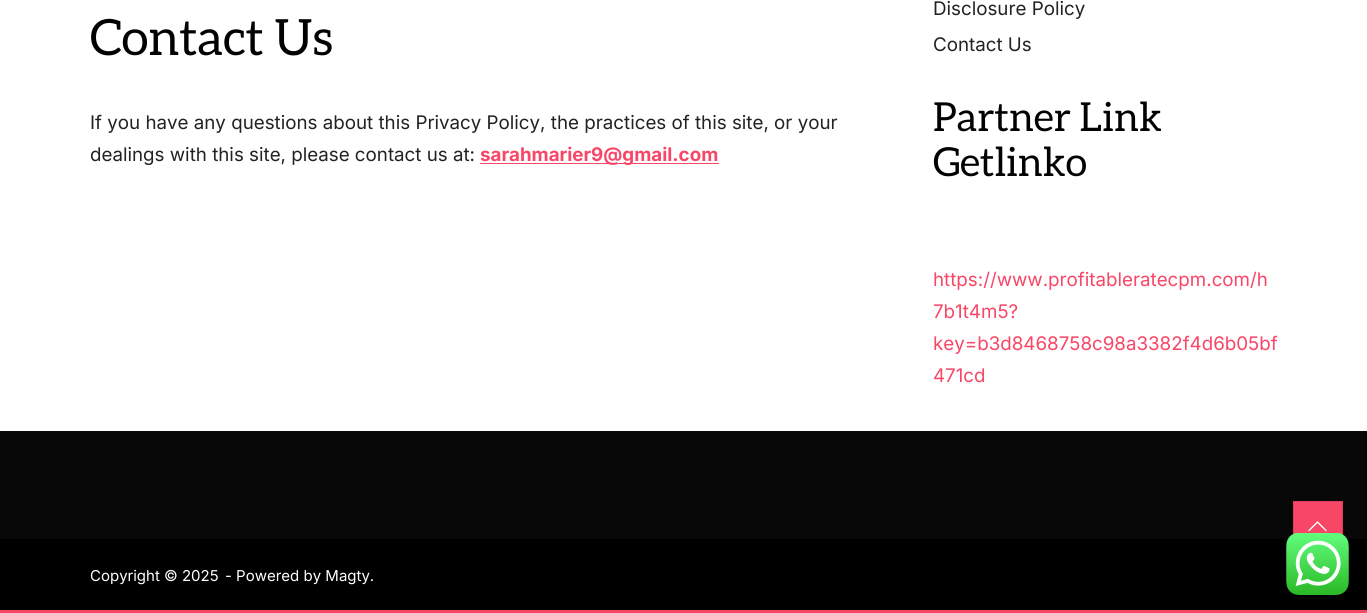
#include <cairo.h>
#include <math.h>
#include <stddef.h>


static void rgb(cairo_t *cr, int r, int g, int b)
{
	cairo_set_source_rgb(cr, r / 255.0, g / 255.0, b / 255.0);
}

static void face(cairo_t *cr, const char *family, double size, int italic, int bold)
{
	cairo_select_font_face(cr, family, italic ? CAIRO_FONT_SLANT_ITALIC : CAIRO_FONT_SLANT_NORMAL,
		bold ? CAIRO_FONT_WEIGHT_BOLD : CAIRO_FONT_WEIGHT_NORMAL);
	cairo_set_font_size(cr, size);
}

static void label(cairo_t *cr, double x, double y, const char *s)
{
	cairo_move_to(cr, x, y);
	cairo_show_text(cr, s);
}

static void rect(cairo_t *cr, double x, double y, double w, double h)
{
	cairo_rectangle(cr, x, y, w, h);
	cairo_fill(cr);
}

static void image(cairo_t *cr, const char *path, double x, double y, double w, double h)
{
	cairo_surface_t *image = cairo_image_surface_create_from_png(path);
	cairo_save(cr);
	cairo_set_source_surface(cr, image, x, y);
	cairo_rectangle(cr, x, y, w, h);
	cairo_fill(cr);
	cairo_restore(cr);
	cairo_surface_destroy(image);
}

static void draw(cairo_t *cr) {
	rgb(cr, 255, 255, 255);
	cairo_paint(cr);
	face(cr, "Aleo", 50, 0, 0);
	rgb(cr, 2, 2, 2);
	label(cr, 90, 55, "Contact Us");
	face(cr, "Inter", 18.75, 0, 0);
	rgb(cr, 35, 34, 34);
	label(cr, 90, 129, "If you have any questions about this Privacy Policy, the practices of this site, or your");
	label(cr, 90, 161, "dealings with this site, please contact us at:");
	rgb(cr, 248, 70, 102);
	rect(cr, 480, 163, 239, 1);
	face(cr, "Inter", 18.75, 0, 1);
	label(cr, 480, 161, "sarahmarier9@gmail.com");
	face(cr, "Inter", 18.75, 0, 0);
	rgb(cr, 35, 34, 34);
	label(cr, 933, 15, "Disclosure Policy");
	label(cr, 933, 51, "Contact Us");
	face(cr, "Aleo", 40, 0, 0);
	rgb(cr, 2, 2, 2);
	label(cr, 933, 131, "Partner Link");
	label(cr, 933, 176, "Getlinko");
	face(cr, "Inter", 18.75, 0, 0);
	rgb(cr, 248, 70, 102);
	label(cr, 933, 286, "https://www.profitableratecpm.com/h");
	label(cr, 933, 318, "7b1t4m5?");
	label(cr, 933, 350, "key=b3d8468758c98a3382f4d6b05bf");
	label(cr, 933, 382, "471cd");
	rgb(cr, 8, 8, 8);
	rect(cr, 0, 431, 1367, 108);
	rgb(cr, 248, 70, 102);
	rect(cr, 1294, 502, 48, 33);
	rgb(cr, 0, 0, 0);
	rect(cr, 0, 539, 1367, 71);
	cairo_rectangle(cr, 1293.5, 501.5, 49, 49);
	rgb(cr, 223, 63, 92);
	cairo_set_line_width(cr, 1);
	cairo_stroke(cr);
	image(cr, "image0.png", 1308, 521, 19, 11);
	face(cr, "Inter", 15, 0, 0);
	rgb(cr, 255, 255, 255);
	label(cr, 90, 581, "Copyright © 2025");
	label(cr, 225, 581, "- Powered by Magty.");
	rgb(cr, 248, 70, 102);
	rect(cr, 0, 610, 1367, 3);
	image(cr, "image1.png", 1286, 533, 63, 62);
}

int main(void) {
	cairo_surface_t *surface = cairo_image_surface_create(CAIRO_FORMAT_RGB24, 1367, 613);
	cairo_t *cr = cairo_create(surface);
	cairo_font_options_t *options = cairo_font_options_create();
	cairo_font_options_set_hint_metrics(options, CAIRO_HINT_METRICS_OFF);
	cairo_font_options_set_hint_style(options, CAIRO_HINT_STYLE_NONE);
	cairo_set_font_options(cr, options);
	cairo_set_miter_limit(cr, 4);
	draw(cr);
	cairo_surface_write_to_png(surface, "render.png");
	cairo_font_options_destroy(options);
	cairo_destroy(cr);
	cairo_surface_destroy(surface);
	return 0;
}
